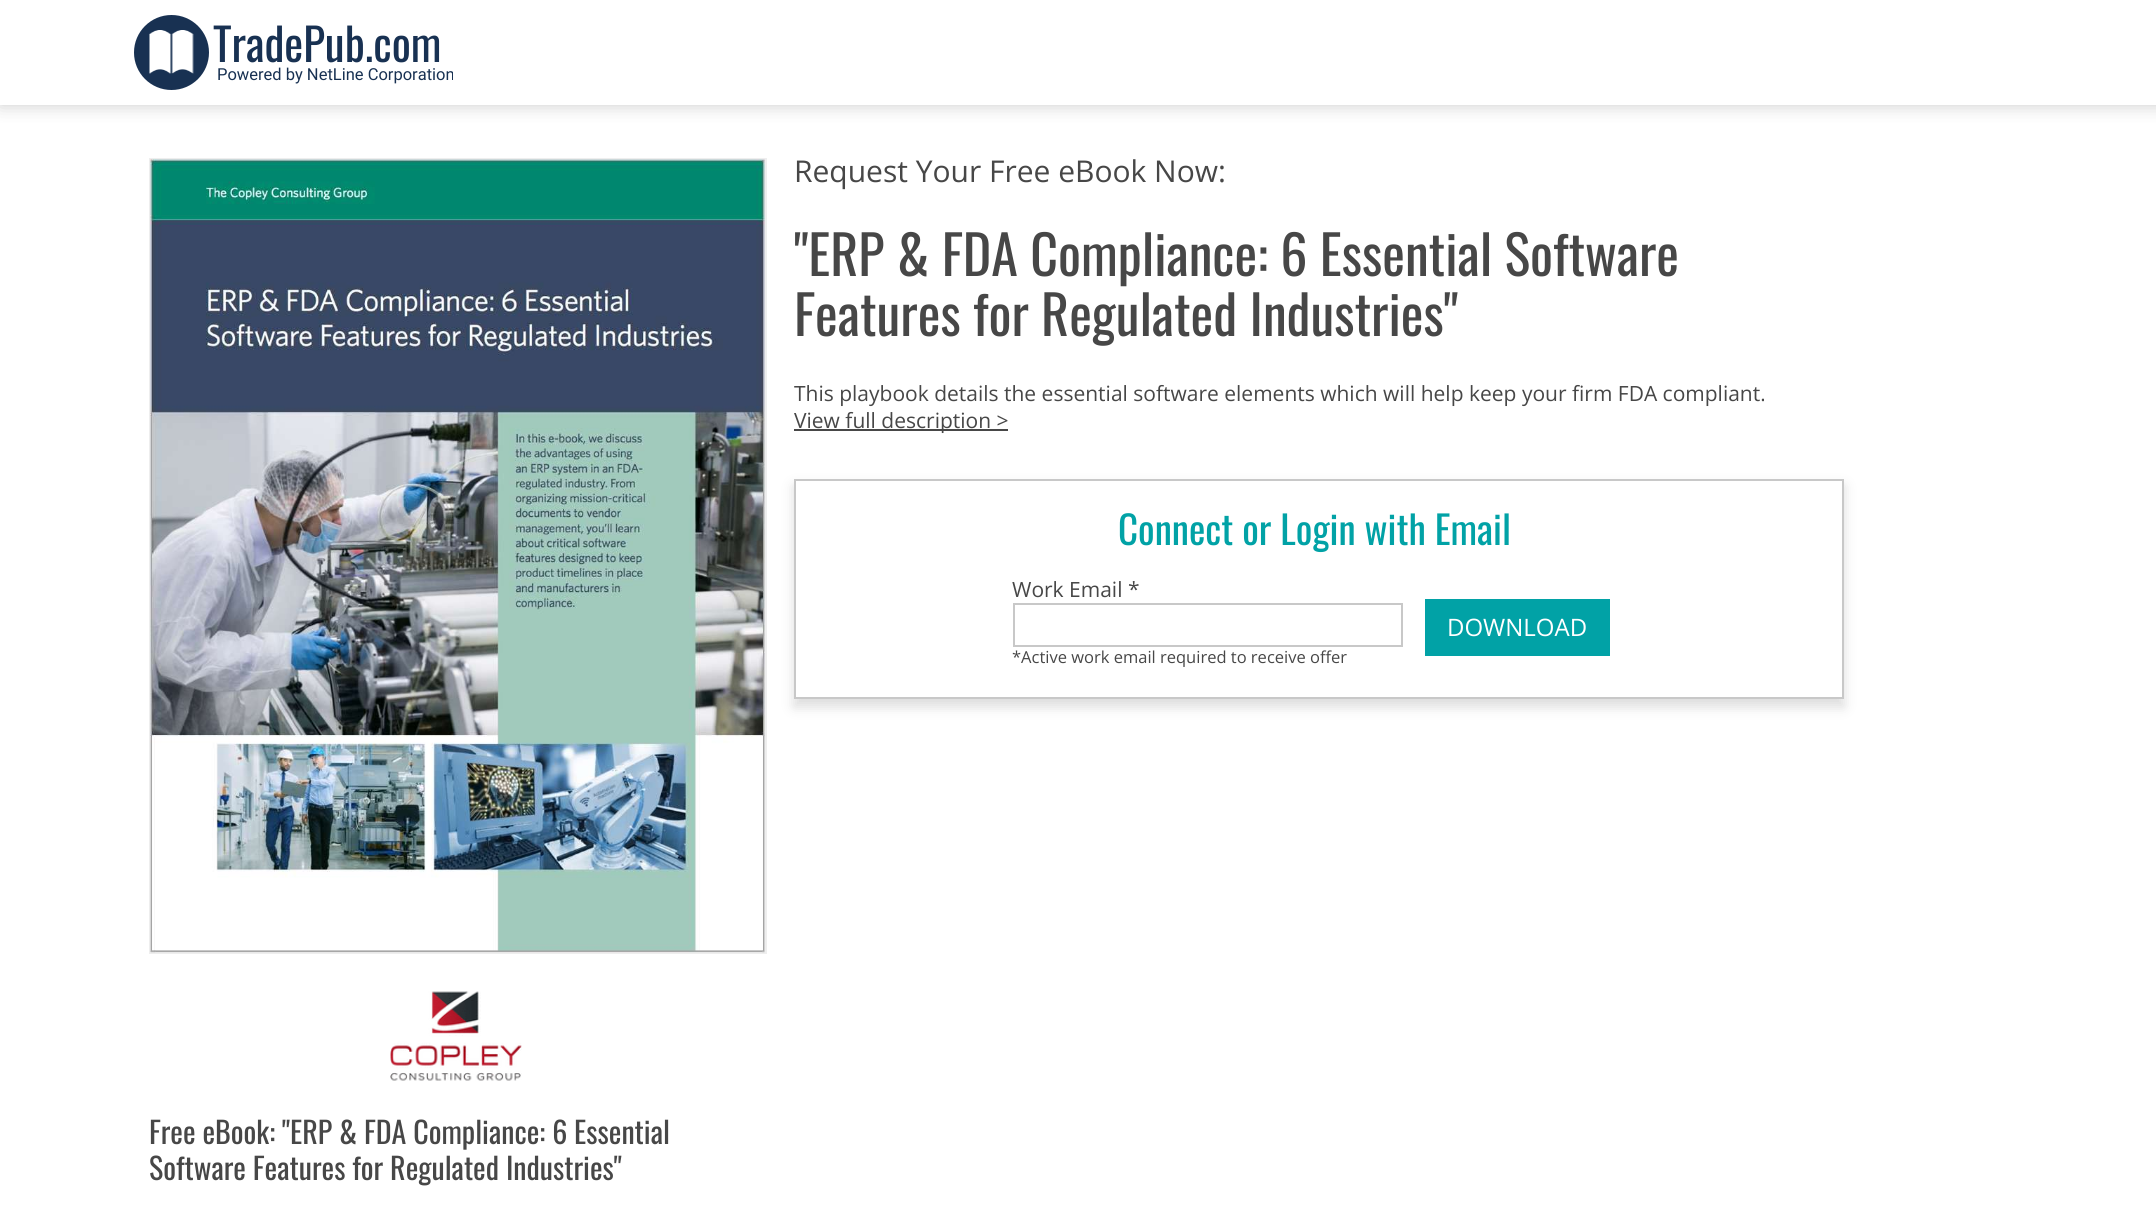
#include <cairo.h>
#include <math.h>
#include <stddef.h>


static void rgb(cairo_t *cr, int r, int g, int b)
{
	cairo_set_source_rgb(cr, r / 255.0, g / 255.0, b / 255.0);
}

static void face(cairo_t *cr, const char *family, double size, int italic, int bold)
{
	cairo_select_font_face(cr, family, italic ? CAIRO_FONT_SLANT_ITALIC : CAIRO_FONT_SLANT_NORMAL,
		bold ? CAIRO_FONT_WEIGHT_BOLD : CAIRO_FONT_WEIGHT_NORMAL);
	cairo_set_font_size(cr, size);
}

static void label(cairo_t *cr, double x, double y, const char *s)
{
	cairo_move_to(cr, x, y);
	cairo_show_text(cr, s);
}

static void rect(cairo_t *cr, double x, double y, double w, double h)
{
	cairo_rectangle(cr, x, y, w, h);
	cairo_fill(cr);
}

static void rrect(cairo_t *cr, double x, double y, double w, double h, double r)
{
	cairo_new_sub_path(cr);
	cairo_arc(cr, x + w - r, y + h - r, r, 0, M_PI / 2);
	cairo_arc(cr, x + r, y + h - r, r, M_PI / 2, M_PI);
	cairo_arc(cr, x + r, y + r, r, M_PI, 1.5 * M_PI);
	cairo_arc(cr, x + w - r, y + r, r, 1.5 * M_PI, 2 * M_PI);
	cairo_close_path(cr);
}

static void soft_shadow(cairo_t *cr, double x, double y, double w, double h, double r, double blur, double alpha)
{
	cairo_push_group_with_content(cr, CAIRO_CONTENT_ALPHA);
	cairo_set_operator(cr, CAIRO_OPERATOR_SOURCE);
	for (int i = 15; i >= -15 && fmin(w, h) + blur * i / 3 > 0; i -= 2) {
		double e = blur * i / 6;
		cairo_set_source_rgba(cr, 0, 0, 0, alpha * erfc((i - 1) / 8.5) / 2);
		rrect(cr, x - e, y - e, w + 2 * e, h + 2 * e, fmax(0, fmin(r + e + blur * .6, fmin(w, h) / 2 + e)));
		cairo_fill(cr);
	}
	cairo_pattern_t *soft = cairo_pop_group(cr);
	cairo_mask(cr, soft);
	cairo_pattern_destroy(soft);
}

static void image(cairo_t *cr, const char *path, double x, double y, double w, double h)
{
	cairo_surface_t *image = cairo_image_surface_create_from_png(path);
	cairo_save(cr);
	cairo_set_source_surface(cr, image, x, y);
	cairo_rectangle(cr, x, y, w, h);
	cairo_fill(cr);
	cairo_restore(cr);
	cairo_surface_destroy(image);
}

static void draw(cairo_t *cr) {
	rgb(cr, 255, 255, 255);
	cairo_paint(cr);
	cairo_save(cr);
	cairo_rectangle(cr, 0, 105, 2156, 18);
	cairo_clip(cr);
	rgb(cr, 204, 204, 204);
	soft_shadow(cr, 0, 0, 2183, 105, 0, 9, 1);
	cairo_restore(cr);
	rgb(cr, 24, 49, 82);
	cairo_arc(cr, 171.5, 52.5, 37.5, 0, 2 * M_PI);
	cairo_fill(cr);
	image(cr, "image0.png", 149, 30, 45, 44);
	face(cr, "Oswald", 45, 0, 0);
	label(cr, 213, 62, "TradePub.com");
	face(cr, "Roboto", 16.5, 0, 0);
	label(cr, 217, 80, "Powered by NetLine Corporation");
	face(cr, "Open Sans", 30, 0, 0);
	rgb(cr, 71, 71, 71);
	label(cr, 794, 182, "Request Your Free eBook Now:");
	face(cr, "Oswald", 54, 0, 0);
	label(cr, 794, 276, "\"ERP & FDA Compliance: 6 Essential Software");
	label(cr, 794, 336, "Features for Regulated Industries\"");
	face(cr, "Open Sans", 21, 0, 0);
	label(cr, 794, 401, "This playbook details the essential software elements which will help keep your firm FDA compliant.");
	rect(cr, 794, 429, 214, 2);
	label(cr, 794, 428, "View full description >");
	rgb(cr, 221, 221, 221);
	soft_shadow(cr, 794, 486, 1050, 221, 0, 6, 1);
	rgb(cr, 255, 255, 255);
	cairo_rectangle(cr, 795, 480, 1048, 218);
	cairo_fill_preserve(cr);
	rgb(cr, 200, 200, 200);
	cairo_stroke(cr);
	face(cr, "Oswald", 39, 0, 0);
	rgb(cr, 1, 162, 166);
	label(cr, 1118, 545, "Connect or Login with Email");
	face(cr, "Open Sans", 21, 0, 0);
	rgb(cr, 71, 71, 71);
	label(cr, 1012, 597, "Work Email *");
	cairo_rectangle(cr, 1014, 604, 388, 42);
	rgb(cr, 200, 200, 200);
	cairo_stroke(cr);
	face(cr, "Open Sans", 16.5, 0, 0);
	rgb(cr, 71, 71, 71);
	label(cr, 1012, 663, "*Active work email required to receive offer");
	rgb(cr, 1, 162, 166);
	rect(cr, 1425, 599, 185, 57);
	face(cr, "Open Sans", 24, 0, 0);
	rgb(cr, 255, 255, 255);
	label(cr, 1447, 636, "DOWNLOAD");
	cairo_rectangle(cr, 150, 159, 616, 794);
	rgb(cr, 238, 238, 238);
	cairo_stroke(cr);
	image(cr, "image1.png", 150, 159, 615, 794);
	image(cr, "image2.png", 390, 991, 132, 90);
	face(cr, "Oswald", 30, 0, 0);
	rgb(cr, 71, 71, 71);
	label(cr, 149, 1144, "Free eBook: \"ERP & FDA Compliance: 6 Essential");
	label(cr, 149, 1180, "Software Features for Regulated Industries\"");
}

int main(void) {
	cairo_surface_t *surface = cairo_image_surface_create(CAIRO_FORMAT_RGB24, 2156, 1228);
	cairo_t *cr = cairo_create(surface);
	cairo_font_options_t *options = cairo_font_options_create();
	cairo_font_options_set_hint_metrics(options, CAIRO_HINT_METRICS_OFF);
	cairo_font_options_set_hint_style(options, CAIRO_HINT_STYLE_NONE);
	cairo_set_font_options(cr, options);
	cairo_set_miter_limit(cr, 4);
	draw(cr);
	cairo_surface_write_to_png(surface, "render.png");
	cairo_font_options_destroy(options);
	cairo_destroy(cr);
	cairo_surface_destroy(surface);
	return 0;
}
